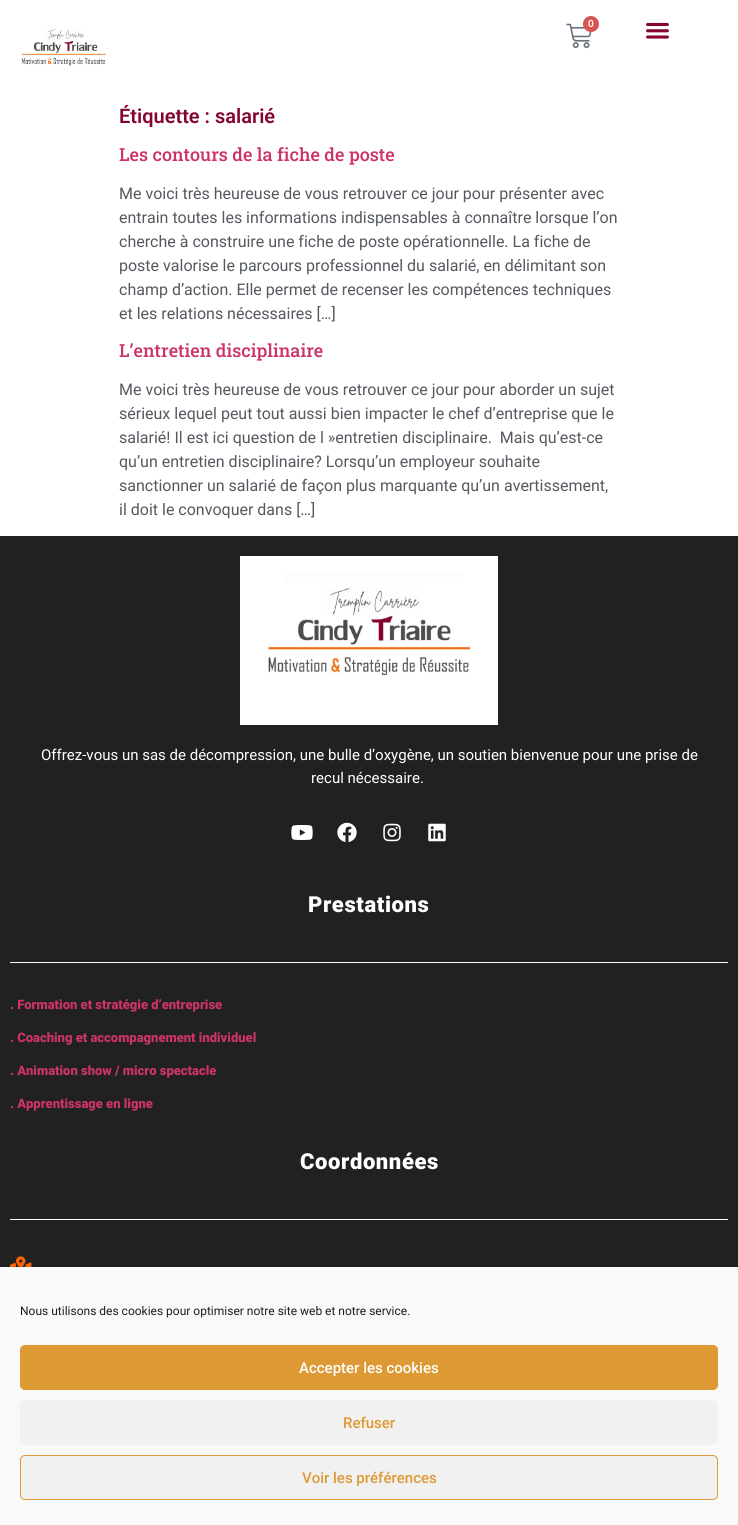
#include <cairo.h>
#include <math.h>
#include <stddef.h>


static void rgb(cairo_t *cr, int r, int g, int b)
{
	cairo_set_source_rgb(cr, r / 255.0, g / 255.0, b / 255.0);
}

static void face(cairo_t *cr, const char *family, double size, int italic, int bold)
{
	cairo_select_font_face(cr, family, italic ? CAIRO_FONT_SLANT_ITALIC : CAIRO_FONT_SLANT_NORMAL,
		bold ? CAIRO_FONT_WEIGHT_BOLD : CAIRO_FONT_WEIGHT_NORMAL);
	cairo_set_font_size(cr, size);
}

static void label(cairo_t *cr, double x, double y, const char *s)
{
	cairo_move_to(cr, x, y);
	cairo_show_text(cr, s);
}

static void tracked(cairo_t *cr, double x, double y, const char *s, double letter, double word)
{
	cairo_move_to(cr, x, y);
	while (*s) {
		char ch[5] = {0};
		int n = 0;
		do ch[n++] = *s++; while ((*s & 0xC0) == 0x80);
		cairo_show_text(cr, ch);
		cairo_rel_move_to(cr, letter + word * (*ch == ' '), 0);
	}
}

static void rect(cairo_t *cr, double x, double y, double w, double h)
{
	cairo_rectangle(cr, x, y, w, h);
	cairo_fill(cr);
}

static void rrect(cairo_t *cr, double x, double y, double w, double h, double r)
{
	cairo_new_sub_path(cr);
	cairo_arc(cr, x + w - r, y + h - r, r, 0, M_PI / 2);
	cairo_arc(cr, x + r, y + h - r, r, M_PI / 2, M_PI);
	cairo_arc(cr, x + r, y + r, r, M_PI, 1.5 * M_PI);
	cairo_arc(cr, x + w - r, y + r, r, 1.5 * M_PI, 2 * M_PI);
	cairo_close_path(cr);
}

static void soft_shadow(cairo_t *cr, double x, double y, double w, double h, double r, double blur, double alpha)
{
	cairo_push_group_with_content(cr, CAIRO_CONTENT_ALPHA);
	cairo_set_operator(cr, CAIRO_OPERATOR_SOURCE);
	for (int i = 15; i >= -15 && fmin(w, h) + blur * i / 3 > 0; i -= 2) {
		double e = blur * i / 6;
		cairo_set_source_rgba(cr, 0, 0, 0, alpha * erfc((i - 1) / 8.5) / 2);
		rrect(cr, x - e, y - e, w + 2 * e, h + 2 * e, fmax(0, fmin(r + e + blur * .6, fmin(w, h) / 2 + e)));
		cairo_fill(cr);
	}
	cairo_pattern_t *soft = cairo_pop_group(cr);
	cairo_mask(cr, soft);
	cairo_pattern_destroy(soft);
}

static void image(cairo_t *cr, const char *path, double x, double y, double w, double h)
{
	cairo_surface_t *image = cairo_image_surface_create_from_png(path);
	cairo_save(cr);
	cairo_set_source_surface(cr, image, x, y);
	cairo_rectangle(cr, x, y, w, h);
	cairo_fill(cr);
	cairo_restore(cr);
	cairo_surface_destroy(image);
}

static void draw(cairo_t *cr) {
	rgb(cr, 255, 255, 255);
	cairo_paint(cr);
	image(cr, "image0.png", 21, 29, 85, 37);
	image(cr, "image1.png", 566, 23, 26, 26);
	rgb(cr, 217, 83, 79);
	cairo_arc(cr, 591, 24, 8, 0, 2 * M_PI);
	cairo_fill(cr);
	face(cr, "Roboto SemiBold", 10, 0, 0);
	rgb(cr, 255, 255, 255);
	label(cr, 588, 27, "0");
	image(cr, "image2.png", 646, 22, 23, 17);
	face(cr, "Roboto SemiBold", 20, 0, 0);
	rgb(cr, 133, 5, 50);
	label(cr, 119, 123, "Étiquette : salarié");
	face(cr, "Roboto Slab Medium", 18, 0, 0);
	rgb(cr, 204, 51, 102);
	label(cr, 119, 161, "Les contours de la fiche de poste");
	face(cr, "Roboto", 16, 0, 0);
	rgb(cr, 84, 89, 95);
	label(cr, 119, 199, "Me voici très heureuse de vous retrouver ce jour pour présenter avec");
	label(cr, 119, 223, "entrain toutes les informations indispensables à connaître lorsque l’on");
	label(cr, 119, 247, "cherche à construire une fiche de poste opérationnelle. La fiche de");
	label(cr, 119, 271, "poste valorise le parcours professionnel du salarié, en délimitant son");
	label(cr, 119, 295, "champ d’action. Elle permet de recenser les compétences techniques");
	label(cr, 119, 319, "et les relations nécessaires […]");
	face(cr, "Roboto Slab Medium", 18, 0, 0);
	rgb(cr, 204, 51, 102);
	label(cr, 119, 357, "L’entretien disciplinaire");
	face(cr, "Roboto", 16, 0, 0);
	rgb(cr, 84, 89, 95);
	label(cr, 119, 395, "Me voici très heureuse de vous retrouver ce jour pour aborder un sujet");
	label(cr, 119, 419, "sérieux lequel peut tout aussi bien impacter le chef d’entreprise que le");
	label(cr, 119, 443, "salarié! Il est ici question de l »entretien disciplinaire.  Mais qu’est-ce");
	label(cr, 119, 467, "qu’un entretien disciplinaire? Lorsqu’un employeur souhaite");
	label(cr, 119, 491, "sanctionner un salarié de façon plus marquante qu’un avertissement,");
	label(cr, 119, 515, "il doit le convoquer dans […]");
	rgb(cr, 33, 33, 33);
	rect(cr, 0, 536, 738, 731);
	image(cr, "image3.png", 240, 556, 258, 169);
	face(cr, "Roboto", 15, 0, 0);
	rgb(cr, 255, 255, 255);
	label(cr, 41, 760, "Offrez-vous un sas de décompression, une bulle d’oxygène, un soutien bienvenue pour une prise de");
	label(cr, 311, 783, "recul nécessaire.");
	image(cr, "image4.png", 291, 825, 22, 15);
	image(cr, "image5.png", 337, 822, 20, 20);
	image(cr, "image6.png", 383, 823, 18, 19);
	image(cr, "image7.png", 428, 823, 18, 19);
	face(cr, "Roboto Black", 22, 0, 0);
	tracked(cr, 308, 912, "Prestations", 0.6, 0);
	rect(cr, 10, 962, 718, 1);
	face(cr, "Roboto Black", 13, 0, 0);
	rgb(cr, 204, 51, 102);
	label(cr, 10, 1009, ". Formation et stratégie d’entreprise");
	label(cr, 10, 1042, ". Coaching et accompagnement individuel");
	label(cr, 10, 1075, ". Animation show / micro spectacle");
	label(cr, 10, 1108, ". Apprentissage en ligne");
	face(cr, "Roboto Black", 22, 0, 0);
	rgb(cr, 255, 255, 255);
	tracked(cr, 300, 1169, "Coordonnées", 0.6, 0);
	rect(cr, 10, 1219, 718, 1);
	image(cr, "image8.png", 10, 1256, 22, 11);
	rgb(cr, 0, 0, 0);
	soft_shadow(cr, 0, 1277, 738, 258, 0, 10, 0.19);
	rgb(cr, 249, 249, 249);
	rect(cr, 0, 1268, 738, 257);
	face(cr, "Roboto", 12, 0, 0);
	rgb(cr, 25, 30, 35);
	label(cr, 20, 1315, "Nous utilisons des cookies pour optimiser notre site web et notre service.");
	rgb(cr, 221, 153, 51);
	rrect(cr, 20.5, 1345.5, 697, 44, 4.5);
	cairo_fill_preserve(cr);
	cairo_set_line_width(cr, 1);
	cairo_stroke(cr);
	face(cr, "Roboto Medium", 15, 0, 0);
	rgb(cr, 255, 255, 255);
	label(cr, 299, 1373, "Accepter les cookies");
	rgb(cr, 241, 241, 241);
	rrect(cr, 20, 1400, 698, 45, 5);
	cairo_fill(cr);
	rgb(cr, 221, 153, 51);
	label(cr, 343, 1428, "Refuser");
	rgb(cr, 241, 241, 241);
	rrect(cr, 20.5, 1455.5, 697, 44, 4.5);
	cairo_fill_preserve(cr);
	rgb(cr, 221, 153, 51);
	cairo_stroke(cr);
	label(cr, 302, 1483, "Voir les préférences");
}

int main(void) {
	cairo_surface_t *surface = cairo_image_surface_create(CAIRO_FORMAT_RGB24, 738, 1525);
	cairo_t *cr = cairo_create(surface);
	cairo_font_options_t *options = cairo_font_options_create();
	cairo_font_options_set_hint_metrics(options, CAIRO_HINT_METRICS_OFF);
	cairo_font_options_set_hint_style(options, CAIRO_HINT_STYLE_NONE);
	cairo_set_font_options(cr, options);
	cairo_set_miter_limit(cr, 4);
	draw(cr);
	cairo_surface_write_to_png(surface, "render.png");
	cairo_font_options_destroy(options);
	cairo_destroy(cr);
	cairo_surface_destroy(surface);
	return 0;
}
